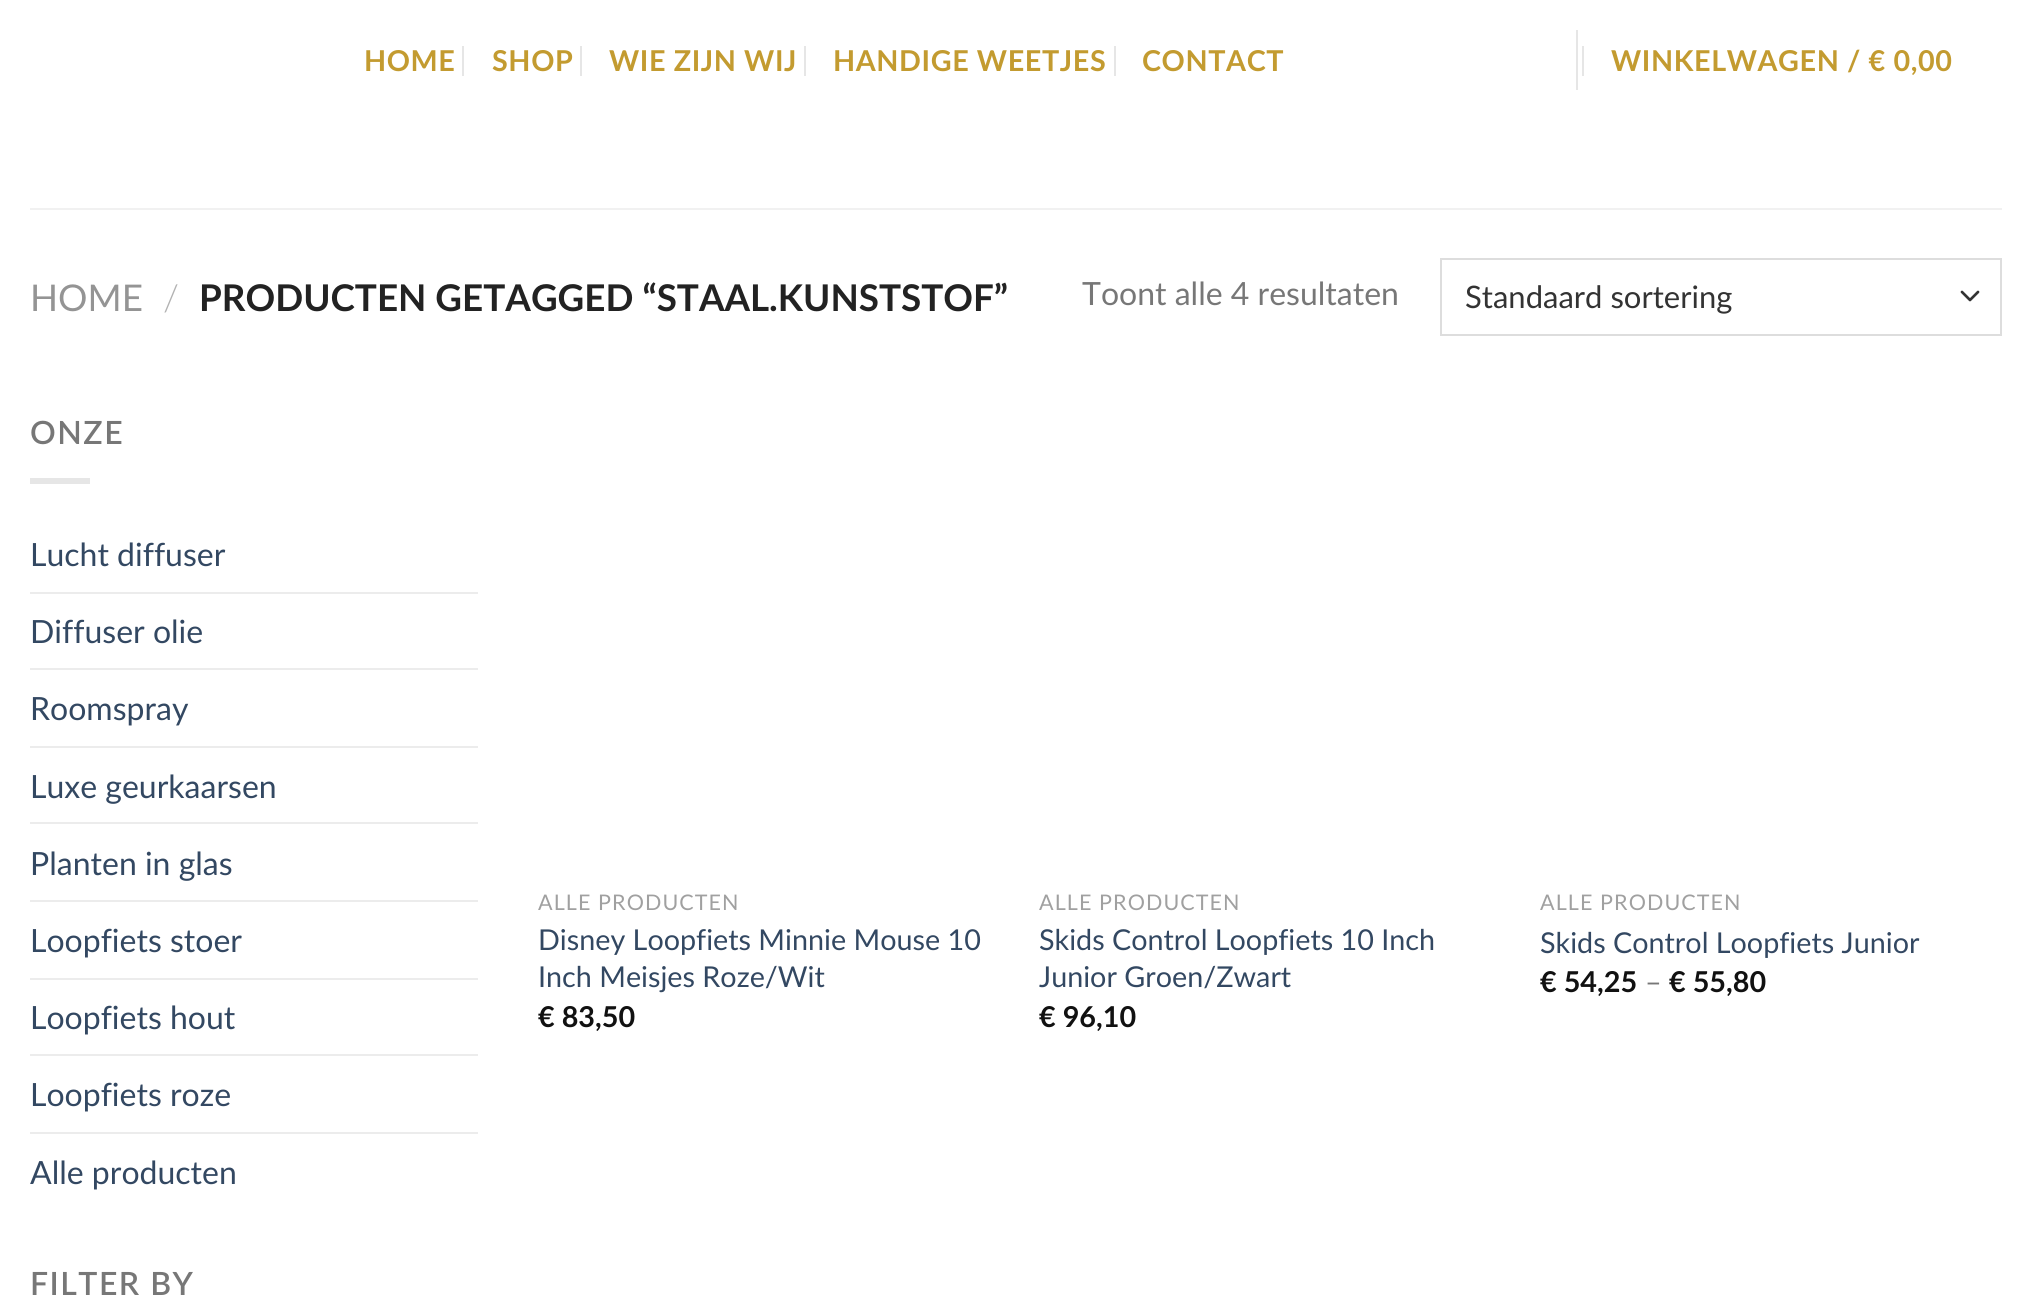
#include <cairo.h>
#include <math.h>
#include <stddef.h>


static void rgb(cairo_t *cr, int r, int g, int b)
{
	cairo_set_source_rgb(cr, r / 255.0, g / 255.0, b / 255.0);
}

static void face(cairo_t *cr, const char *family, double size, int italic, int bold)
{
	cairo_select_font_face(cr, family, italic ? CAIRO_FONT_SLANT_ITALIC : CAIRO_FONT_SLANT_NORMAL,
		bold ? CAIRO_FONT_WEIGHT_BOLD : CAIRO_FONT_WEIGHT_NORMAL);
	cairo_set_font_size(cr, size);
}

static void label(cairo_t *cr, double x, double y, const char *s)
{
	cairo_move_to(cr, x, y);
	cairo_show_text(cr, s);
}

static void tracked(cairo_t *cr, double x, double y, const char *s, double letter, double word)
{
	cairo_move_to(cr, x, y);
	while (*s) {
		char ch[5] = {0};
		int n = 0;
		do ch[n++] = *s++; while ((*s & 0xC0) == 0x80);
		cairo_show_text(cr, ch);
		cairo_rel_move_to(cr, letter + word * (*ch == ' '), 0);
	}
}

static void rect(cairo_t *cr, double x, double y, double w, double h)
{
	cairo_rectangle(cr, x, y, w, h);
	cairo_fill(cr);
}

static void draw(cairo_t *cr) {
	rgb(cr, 255, 255, 255);
	cairo_paint(cr);
	face(cr, "Lato", 28.75, 0, 1);
	rgb(cr, 195, 155, 48);
	tracked(cr, 364, 71, "HOME", 0.6, 0);
	rgb(cr, 230, 230, 230);
	rect(cr, 462, 46, 2, 30);
	rgb(cr, 195, 155, 48);
	tracked(cr, 492, 71, "SHOP", 0.6, 0);
	rgb(cr, 230, 230, 230);
	rect(cr, 580, 46, 2, 30);
	rgb(cr, 195, 155, 48);
	tracked(cr, 609, 71, "WIE ZIJN WIJ", 0.6, 0);
	rgb(cr, 230, 230, 230);
	rect(cr, 804, 46, 2, 30);
	rgb(cr, 195, 155, 48);
	tracked(cr, 833, 71, "HANDIGE WEETJES", 0.6, 0);
	rgb(cr, 230, 230, 230);
	rect(cr, 1114, 46, 2, 30);
	rgb(cr, 195, 155, 48);
	tracked(cr, 1142, 71, "CONTACT", 0.6, 0);
	rgb(cr, 230, 230, 230);
	rect(cr, 1576, 30, 2, 60);
	rect(cr, 1582, 46, 2, 30);
	rgb(cr, 195, 155, 48);
	tracked(cr, 1611, 71, "WINKELWAGEN / € 0,00", 0.6, 0);
	rgb(cr, 241, 241, 241);
	rect(cr, 30, 208, 1972, 2);
	face(cr, "Lato", 36.8, 0, 0);
	rgb(cr, 148, 148, 148);
	label(cr, 30, 311, "HOME");
	face(cr, "Lato Light", 36.8, 0, 0);
	rgb(cr, 178, 178, 178);
	label(cr, 163, 311, "/");
	face(cr, "Lato", 36.8, 0, 1);
	rgb(cr, 34, 34, 34);
	label(cr, 199, 311, "PRODUCTEN GETAGGED “STAAL.KUNSTSTOF”");
	face(cr, "Lato", 32, 0, 0);
	rgb(cr, 119, 119, 119);
	label(cr, 1082, 305, "Toont alle 4 resultaten");
	cairo_new_path(cr);
	cairo_move_to(cr, 1962, 292);
	cairo_line_to(cr, 1970, 300);
	cairo_line_to(cr, 1978, 292);
	rgb(cr, 51, 51, 51);
	cairo_set_line_width(cr, 2.7);
	cairo_set_line_cap(cr, CAIRO_LINE_CAP_ROUND);
	cairo_set_line_join(cr, CAIRO_LINE_JOIN_ROUND);
	cairo_stroke(cr);
	cairo_rectangle(cr, 1441, 259, 560, 76);
	rgb(cr, 221, 221, 221);
	cairo_set_line_width(cr, 2);
	cairo_set_line_cap(cr, CAIRO_LINE_CAP_BUTT);
	cairo_set_line_join(cr, CAIRO_LINE_JOIN_MITER);
	cairo_stroke(cr);
	face(cr, "Lato", 31, 0, 0);
	rgb(cr, 51, 51, 51);
	label(cr, 1465, 308, "Standaard sortering");
	face(cr, "Lato SemiBold", 32, 0, 0);
	rgb(cr, 119, 119, 119);
	tracked(cr, 30, 444, "ONZE", 1.5, 0);
	rgb(cr, 230, 230, 230);
	rect(cr, 30, 478, 60, 6);
	face(cr, "Lato", 32, 0, 0);
	rgb(cr, 51, 72, 98);
	label(cr, 30, 566, "Lucht diffuser");
	rgb(cr, 236, 236, 236);
	rect(cr, 30, 592, 448, 2);
	rgb(cr, 51, 72, 98);
	label(cr, 30, 643, "Diffuser olie");
	rgb(cr, 236, 236, 236);
	rect(cr, 30, 668, 448, 2);
	rgb(cr, 51, 72, 98);
	label(cr, 30, 720, "Roomspray");
	rgb(cr, 236, 236, 236);
	rect(cr, 30, 746, 448, 2);
	rgb(cr, 51, 72, 98);
	label(cr, 30, 798, "Luxe geurkaarsen");
	rgb(cr, 236, 236, 236);
	rect(cr, 30, 822, 448, 2);
	rgb(cr, 51, 72, 98);
	label(cr, 30, 875, "Planten in glas");
	rgb(cr, 236, 236, 236);
	rect(cr, 30, 900, 448, 2);
	rgb(cr, 51, 72, 98);
	label(cr, 30, 952, "Loopfiets stoer");
	rgb(cr, 236, 236, 236);
	rect(cr, 30, 978, 448, 2);
	rgb(cr, 51, 72, 98);
	label(cr, 30, 1029, "Loopfiets hout");
	rgb(cr, 236, 236, 236);
	rect(cr, 30, 1054, 448, 2);
	rgb(cr, 51, 72, 98);
	label(cr, 30, 1106, "Loopfiets roze");
	rgb(cr, 236, 236, 236);
	rect(cr, 30, 1132, 448, 2);
	rgb(cr, 51, 72, 98);
	label(cr, 30, 1184, "Alle producten");
	face(cr, "Lato SemiBold", 32, 0, 0);
	rgb(cr, 119, 119, 119);
	tracked(cr, 30, 1295, "FILTER BY", 1.5, 0);
	face(cr, "Lato", 21.5, 0, 0);
	rgb(cr, 160, 160, 160);
	tracked(cr, 538, 910, "ALLE PRODUCTEN", 1.1, 0);
	face(cr, "Lato", 28.75, 0, 0);
	rgb(cr, 51, 72, 98);
	label(cr, 538, 950, "Disney Loopfiets Minnie Mouse 10");
	label(cr, 538, 987, "Inch Meisjes Roze/Wit");
	face(cr, "Lato", 28.75, 0, 1);
	rgb(cr, 17, 17, 17);
	label(cr, 538, 1027, "€ 83,50");
	face(cr, "Lato", 21.5, 0, 0);
	rgb(cr, 160, 160, 160);
	tracked(cr, 1039, 910, "ALLE PRODUCTEN", 1.1, 0);
	face(cr, "Lato", 28.75, 0, 0);
	rgb(cr, 51, 72, 98);
	label(cr, 1039, 950, "Skids Control Loopfiets 10 Inch");
	label(cr, 1039, 987, "Junior Groen/Zwart");
	face(cr, "Lato", 28.75, 0, 1);
	rgb(cr, 17, 17, 17);
	label(cr, 1039, 1027, "€ 96,10");
	face(cr, "Lato", 21.5, 0, 0);
	rgb(cr, 160, 160, 160);
	tracked(cr, 1540, 910, "ALLE PRODUCTEN", 1.1, 0);
	face(cr, "Lato", 28.75, 0, 0);
	rgb(cr, 51, 72, 98);
	label(cr, 1540, 953, "Skids Control Loopfiets Junior");
	face(cr, "Lato", 28.75, 0, 1);
	rgb(cr, 17, 17, 17);
	label(cr, 1540, 992, "€ 54,25");
	face(cr, "Lato", 28.75, 0, 0);
	rgb(cr, 119, 119, 119);
	label(cr, 1645, 992, "–");
	face(cr, "Lato", 28.75, 0, 1);
	rgb(cr, 17, 17, 17);
	label(cr, 1669, 992, "€ 55,80");
}

int main(void) {
	cairo_surface_t *surface = cairo_image_surface_create(CAIRO_FORMAT_RGB24, 2031, 1295);
	cairo_t *cr = cairo_create(surface);
	cairo_font_options_t *options = cairo_font_options_create();
	cairo_font_options_set_hint_metrics(options, CAIRO_HINT_METRICS_OFF);
	cairo_font_options_set_hint_style(options, CAIRO_HINT_STYLE_NONE);
	cairo_set_font_options(cr, options);
	cairo_set_miter_limit(cr, 4);
	draw(cr);
	cairo_surface_write_to_png(surface, "render.png");
	cairo_font_options_destroy(options);
	cairo_destroy(cr);
	cairo_surface_destroy(surface);
	return 0;
}
